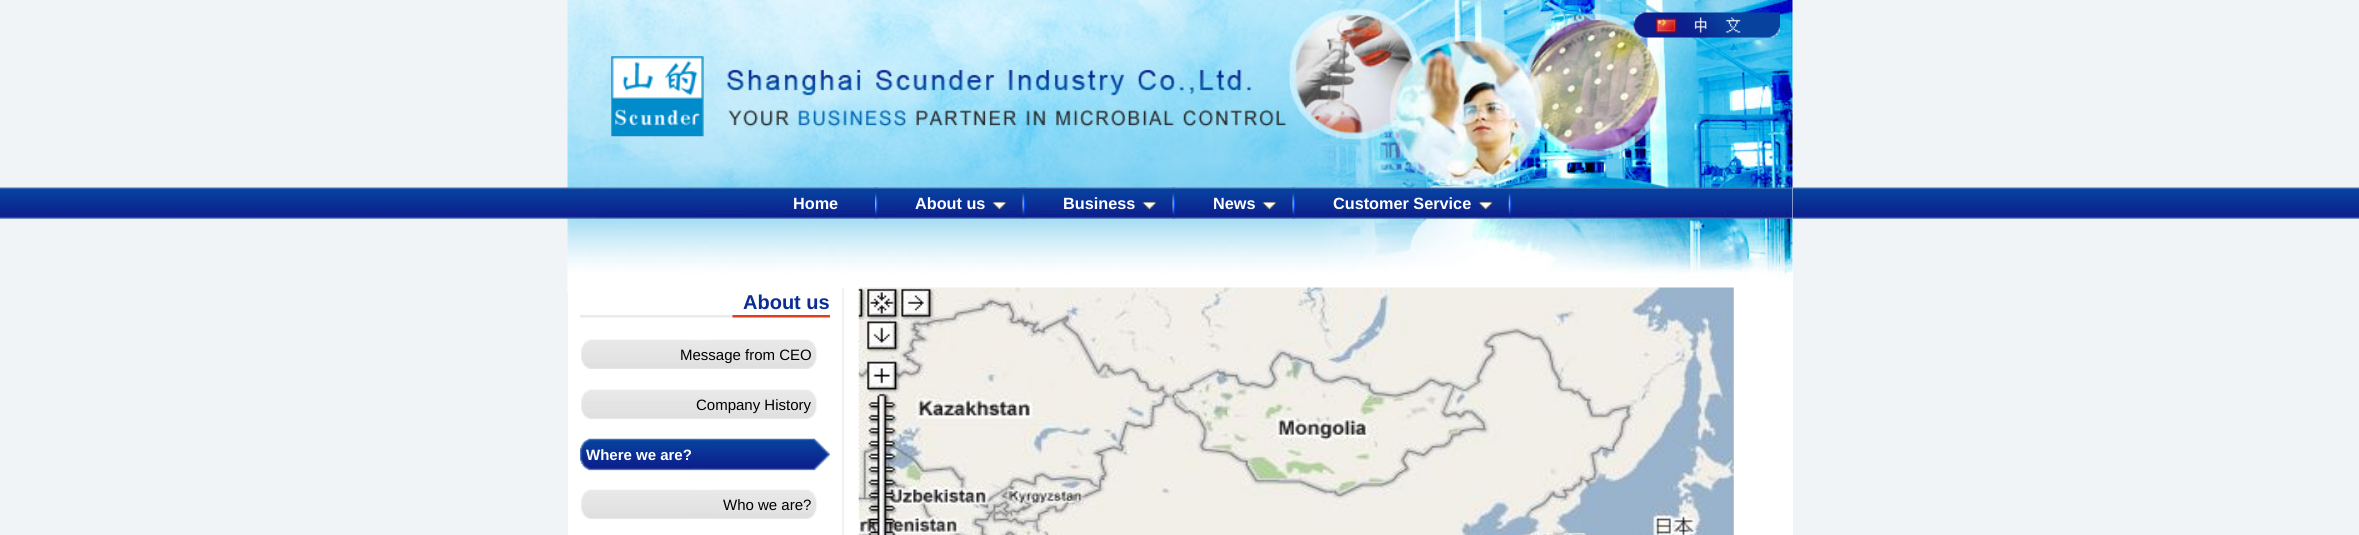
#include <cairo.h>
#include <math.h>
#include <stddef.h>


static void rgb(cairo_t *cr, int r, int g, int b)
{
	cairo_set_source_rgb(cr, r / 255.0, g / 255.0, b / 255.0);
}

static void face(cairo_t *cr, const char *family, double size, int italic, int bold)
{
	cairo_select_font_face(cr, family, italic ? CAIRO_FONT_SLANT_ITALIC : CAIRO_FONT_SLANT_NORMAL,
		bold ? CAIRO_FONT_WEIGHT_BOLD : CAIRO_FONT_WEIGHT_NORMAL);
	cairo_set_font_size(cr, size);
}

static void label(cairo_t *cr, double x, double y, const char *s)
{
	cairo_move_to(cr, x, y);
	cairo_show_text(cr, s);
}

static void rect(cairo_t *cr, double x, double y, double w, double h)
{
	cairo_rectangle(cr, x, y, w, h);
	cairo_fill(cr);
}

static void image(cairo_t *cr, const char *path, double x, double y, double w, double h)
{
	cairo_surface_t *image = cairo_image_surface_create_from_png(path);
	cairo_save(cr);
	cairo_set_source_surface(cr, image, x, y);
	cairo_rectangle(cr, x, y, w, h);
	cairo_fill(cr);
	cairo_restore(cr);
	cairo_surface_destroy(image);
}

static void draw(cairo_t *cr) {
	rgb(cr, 241, 244, 247);
	cairo_paint(cr);
	image(cr, "image0.png", 0, 187, 2359, 32);
	rgb(cr, 255, 255, 255);
	rect(cr, 568, 0, 1225, 535);
	image(cr, "image1.png", 567, 0, 1226, 294);
	image(cr, "image2.png", 1633, 12, 147, 26);
	image(cr, "image3.png", 611, 56, 93, 81);
	image(cr, "image4.png", 875, 187, 3, 32);
	face(cr, "Liberation Sans", 16.25, 0, 1);
	label(cr, 793, 209, "Home");
	image(cr, "image5.png", 1022, 187, 3, 32);
	label(cr, 915, 209, "About us");
	image(cr, "image6.png", 992, 201, 15, 9);
	image(cr, "image7.png", 1172, 187, 3, 32);
	label(cr, 1063, 209, "Business");
	image(cr, "image8.png", 1142, 201, 15, 9);
	image(cr, "image9.png", 1292, 187, 3, 32);
	label(cr, 1213, 209, "News");
	image(cr, "image10.png", 1262, 201, 15, 9);
	image(cr, "image11.png", 1508, 187, 4, 32);
	label(cr, 1333, 209, "Customer Service");
	image(cr, "image12.png", 1478, 201, 15, 9);
	image(cr, "image13.png", 842, 287, 2, 248);
	image(cr, "image14.png", 580, 315, 250, 3);
	face(cr, "Liberation Sans", 20, 0, 1);
	rgb(cr, 10, 45, 148);
	label(cr, 743, 309, "About us");
	image(cr, "image15.png", 581, 339, 236, 30);
	face(cr, "Liberation Sans", 15, 0, 0);
	rgb(cr, 0, 0, 0);
	label(cr, 680, 360, "Message from CEO");
	image(cr, "image15.png", 581, 389, 236, 30);
	label(cr, 696, 410, "Company History");
	image(cr, "image16.png", 580, 438, 250, 33);
	face(cr, "Liberation Sans", 15, 0, 1);
	rgb(cr, 255, 255, 255);
	label(cr, 586, 460, "Where we are?");
	image(cr, "image15.png", 581, 489, 236, 30);
	face(cr, "Liberation Sans", 15, 0, 0);
	rgb(cr, 0, 0, 0);
	label(cr, 723, 510, "Who we are?");
	image(cr, "image17.png", 858, 287, 876, 248);
}

int main(void) {
	cairo_surface_t *surface = cairo_image_surface_create(CAIRO_FORMAT_RGB24, 2359, 535);
	cairo_t *cr = cairo_create(surface);
	cairo_font_options_t *options = cairo_font_options_create();
	cairo_font_options_set_hint_metrics(options, CAIRO_HINT_METRICS_OFF);
	cairo_font_options_set_hint_style(options, CAIRO_HINT_STYLE_NONE);
	cairo_set_font_options(cr, options);
	cairo_set_miter_limit(cr, 4);
	draw(cr);
	cairo_surface_write_to_png(surface, "render.png");
	cairo_font_options_destroy(options);
	cairo_destroy(cr);
	cairo_surface_destroy(surface);
	return 0;
}
